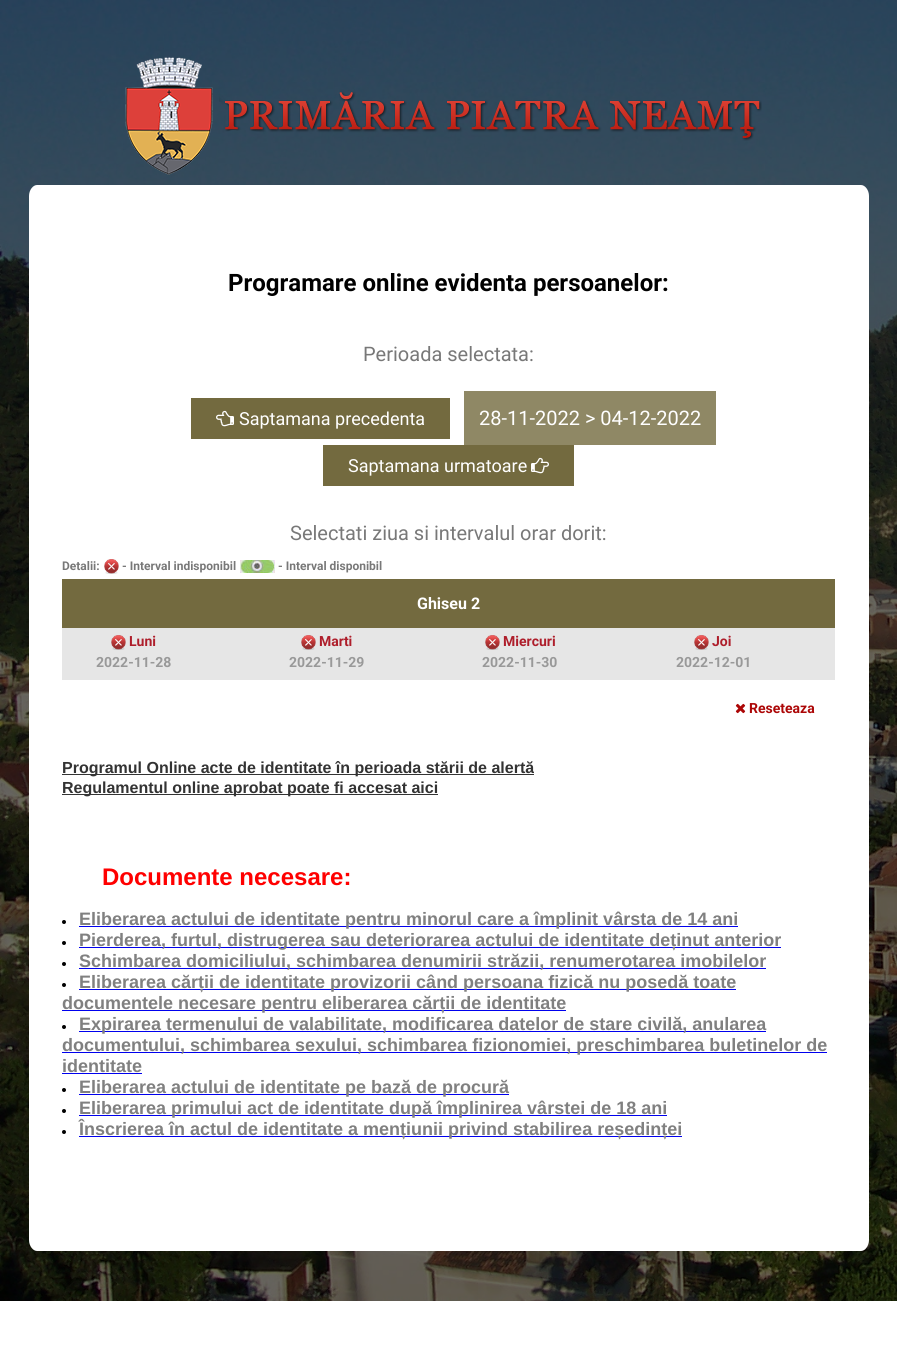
#include <cairo.h>
#include <math.h>
#include <stddef.h>


static void rgb(cairo_t *cr, int r, int g, int b)
{
	cairo_set_source_rgb(cr, r / 255.0, g / 255.0, b / 255.0);
}

static void face(cairo_t *cr, const char *family, double size, int italic, int bold)
{
	cairo_select_font_face(cr, family, italic ? CAIRO_FONT_SLANT_ITALIC : CAIRO_FONT_SLANT_NORMAL,
		bold ? CAIRO_FONT_WEIGHT_BOLD : CAIRO_FONT_WEIGHT_NORMAL);
	cairo_set_font_size(cr, size);
}

static void label(cairo_t *cr, double x, double y, const char *s)
{
	cairo_move_to(cr, x, y);
	cairo_show_text(cr, s);
}

static void rect(cairo_t *cr, double x, double y, double w, double h)
{
	cairo_rectangle(cr, x, y, w, h);
	cairo_fill(cr);
}

static void image(cairo_t *cr, const char *path, double x, double y, double w, double h)
{
	cairo_surface_t *image = cairo_image_surface_create_from_png(path);
	cairo_save(cr);
	cairo_set_source_surface(cr, image, x, y);
	cairo_rectangle(cr, x, y, w, h);
	cairo_fill(cr);
	cairo_restore(cr);
	cairo_surface_destroy(image);
}

static void draw(cairo_t *cr) {
	rgb(cr, 255, 255, 255);
	cairo_paint(cr);
	image(cr, "image0.png", 0, 0, 897, 1301);
	image(cr, "image1.png", 125, 57, 637, 118);
	rgb(cr, 255, 255, 255);
	cairo_new_path(cr);
	cairo_move_to(cr, 37, 185);
	cairo_line_to(cr, 861, 185);
	cairo_curve_to(cr, 865, 185, 869, 190, 869, 196);
	cairo_line_to(cr, 869, 1240);
	cairo_curve_to(cr, 869, 1246, 865, 1251, 861, 1251);
	cairo_line_to(cr, 37, 1251);
	cairo_curve_to(cr, 33, 1251, 29, 1246, 29, 1240);
	cairo_line_to(cr, 29, 196);
	cairo_curve_to(cr, 29, 190, 33, 185, 37, 185);
	cairo_close_path(cr);
	cairo_fill(cr);
	face(cr, "Roboto", 24, 0, 1);
	rgb(cr, 0, 0, 0);
	label(cr, 228, 291, "Programare online evidenta persoanelor:");
	face(cr, "Roboto", 20, 0, 0);
	rgb(cr, 120, 120, 120);
	label(cr, 363, 361, "Perioada selectata:");
	rgb(cr, 115, 106, 63);
	rect(cr, 191, 398, 259, 41);
	image(cr, "image2.png", 216, 410, 18, 17);
	face(cr, "Roboto", 18, 0, 0);
	rgb(cr, 255, 255, 255);
	label(cr, 239, 425, "Saptamana precedenta");
	rgb(cr, 143, 136, 101);
	rect(cr, 464, 391, 252, 54);
	face(cr, "Roboto", 20, 0, 0);
	rgb(cr, 255, 255, 255);
	label(cr, 479, 425, "28-11-2022 > 04-12-2022");
	rgb(cr, 115, 106, 63);
	rect(cr, 323, 445, 251, 41);
	face(cr, "Roboto", 18, 0, 0);
	rgb(cr, 255, 255, 255);
	label(cr, 348, 472, "Saptamana urmatoare");
	image(cr, "image3.png", 531, 457, 18, 17);
	face(cr, "Roboto", 20, 0, 0);
	rgb(cr, 120, 120, 120);
	label(cr, 290, 540, "Selectati ziua si intervalul orar dorit:");
	face(cr, "Roboto", 12, 0, 1);
	label(cr, 62, 570, "Detalii:");
	image(cr, "image4.png", 104, 559, 15, 15);
	label(cr, 122, 570, "- Interval indisponibil");
	image(cr, "image5.png", 240, 560, 35, 13);
	label(cr, 278, 570, "- Interval disponibil");
	rgb(cr, 115, 106, 63);
	rect(cr, 62, 579, 773, 49);
	face(cr, "Roboto", 16, 0, 1);
	rgb(cr, 255, 255, 255);
	label(cr, 417, 609, "Ghiseu 2");
	rgb(cr, 230, 230, 230);
	rect(cr, 62, 628, 773, 52);
	image(cr, "image6.png", 111, 635, 15, 15);
	face(cr, "Roboto", 14, 0, 1);
	rgb(cr, 174, 30, 43);
	label(cr, 129, 646, "Luni");
	rgb(cr, 153, 153, 153);
	label(cr, 96, 667, "2022-11-28");
	image(cr, "image7.png", 301, 635, 15, 15);
	rgb(cr, 174, 30, 43);
	label(cr, 319, 646, "Marti");
	rgb(cr, 153, 153, 153);
	label(cr, 289, 667, "2022-11-29");
	image(cr, "image6.png", 485, 635, 15, 15);
	rgb(cr, 174, 30, 43);
	label(cr, 503, 646, "Miercuri");
	rgb(cr, 153, 153, 153);
	label(cr, 482, 667, "2022-11-30");
	image(cr, "image6.png", 694, 635, 15, 15);
	rgb(cr, 174, 30, 43);
	label(cr, 712, 646, "Joi");
	rgb(cr, 153, 153, 153);
	label(cr, 676, 667, "2022-12-01");
	image(cr, "image8.png", 735, 703, 11, 11);
	rgb(cr, 172, 7, 7);
	label(cr, 749, 713, "Reseteaza");
	rgb(cr, 51, 51, 51);
	rect(cr, 62, 774, 472, 1);
	face(cr, "Liberation Sans", 16, 0, 1);
	label(cr, 62, 773, "Programul Online acte de identitate în perioada stării de alertă");
	rect(cr, 62, 794, 376, 1);
	label(cr, 62, 793, "Regulamentul online aprobat poate fi accesat aici");
	face(cr, "Liberation Sans", 24, 0, 1);
	rgb(cr, 255, 0, 0);
	label(cr, 102, 885, "Documente necesare:");
	rgb(cr, 0, 0, 0);
	cairo_new_path(cr);
	cairo_arc(cr, 64, 922, 2, 0, 2 * M_PI);
	cairo_fill(cr);
	rgb(cr, 0, 0, 238);
	rect(cr, 79, 926, 659, 1);
	face(cr, "Liberation Sans", 18, 0, 1);
	rgb(cr, 128, 128, 128);
	label(cr, 79, 925, "Eliberarea actului de identitate pentru minorul care a împlinit vârsta de 14 ani");
	rgb(cr, 0, 0, 0);
	cairo_new_path(cr);
	cairo_arc(cr, 64, 943, 2, 0, 2 * M_PI);
	cairo_fill(cr);
	rgb(cr, 0, 0, 238);
	rect(cr, 79, 947, 702, 1);
	rgb(cr, 128, 128, 128);
	label(cr, 79, 946, "Pierderea, furtul, distrugerea sau deteriorarea actului de identitate deținut anterior");
	rgb(cr, 0, 0, 0);
	cairo_new_path(cr);
	cairo_arc(cr, 64, 964, 2, 0, 2 * M_PI);
	cairo_fill(cr);
	rgb(cr, 0, 0, 238);
	rect(cr, 79, 968, 687, 1);
	rgb(cr, 128, 128, 128);
	label(cr, 79, 967, "Schimbarea domiciliului, schimbarea denumirii străzii, renumerotarea imobilelor");
	rgb(cr, 0, 0, 0);
	cairo_new_path(cr);
	cairo_arc(cr, 64, 985, 2, 0, 2 * M_PI);
	cairo_fill(cr);
	rgb(cr, 0, 0, 238);
	rect(cr, 79, 989, 657, 1);
	rgb(cr, 128, 128, 128);
	label(cr, 79, 988, "Eliberarea cărții de identitate provizorii când persoana fizică nu posedă toate");
	rgb(cr, 0, 0, 238);
	rect(cr, 62, 1010, 504, 1);
	rgb(cr, 128, 128, 128);
	label(cr, 62, 1009, "documentele necesare pentru eliberarea cărții de identitate");
	rgb(cr, 0, 0, 0);
	cairo_new_path(cr);
	cairo_arc(cr, 64, 1027, 2, 0, 2 * M_PI);
	cairo_fill(cr);
	rgb(cr, 0, 0, 238);
	rect(cr, 79, 1031, 687, 1);
	rgb(cr, 128, 128, 128);
	label(cr, 79, 1030, "Expirarea termenului de valabilitate, modificarea datelor de stare civilă, anularea");
	rgb(cr, 0, 0, 238);
	rect(cr, 62, 1052, 765, 1);
	rgb(cr, 128, 128, 128);
	label(cr, 62, 1051, "documentului, schimbarea sexului, schimbarea fizionomiei, preschimbarea buletinelor de");
	label(cr, 62, 1072, "identitate");
	rgb(cr, 0, 0, 238);
	rect(cr, 62, 1073, 80, 1);
	rgb(cr, 0, 0, 0);
	cairo_new_path(cr);
	cairo_arc(cr, 64, 1090, 2, 0, 2 * M_PI);
	cairo_fill(cr);
	rgb(cr, 0, 0, 238);
	rect(cr, 79, 1094, 430, 1);
	rgb(cr, 128, 128, 128);
	label(cr, 79, 1093, "Eliberarea actului de identitate pe bază de procură");
	rgb(cr, 0, 0, 0);
	cairo_new_path(cr);
	cairo_arc(cr, 64, 1111, 2, 0, 2 * M_PI);
	cairo_fill(cr);
	rgb(cr, 0, 0, 238);
	rect(cr, 79, 1115, 588, 1);
	rgb(cr, 128, 128, 128);
	label(cr, 79, 1114, "Eliberarea primului act de identitate după împlinirea vârstei de 18 ani");
	rgb(cr, 0, 0, 0);
	cairo_new_path(cr);
	cairo_arc(cr, 64, 1132, 2, 0, 2 * M_PI);
	cairo_fill(cr);
	rgb(cr, 0, 0, 238);
	rect(cr, 79, 1136, 603, 1);
	rgb(cr, 128, 128, 128);
	label(cr, 79, 1135, "Înscrierea în actul de identitate a mențiunii privind stabilirea reședinței");
}

int main(void) {
	cairo_surface_t *surface = cairo_image_surface_create(CAIRO_FORMAT_RGB24, 897, 1351);
	cairo_t *cr = cairo_create(surface);
	cairo_font_options_t *options = cairo_font_options_create();
	cairo_font_options_set_hint_metrics(options, CAIRO_HINT_METRICS_OFF);
	cairo_font_options_set_hint_style(options, CAIRO_HINT_STYLE_NONE);
	cairo_set_font_options(cr, options);
	cairo_set_miter_limit(cr, 4);
	draw(cr);
	cairo_surface_write_to_png(surface, "render.png");
	cairo_font_options_destroy(options);
	cairo_destroy(cr);
	cairo_surface_destroy(surface);
	return 0;
}
